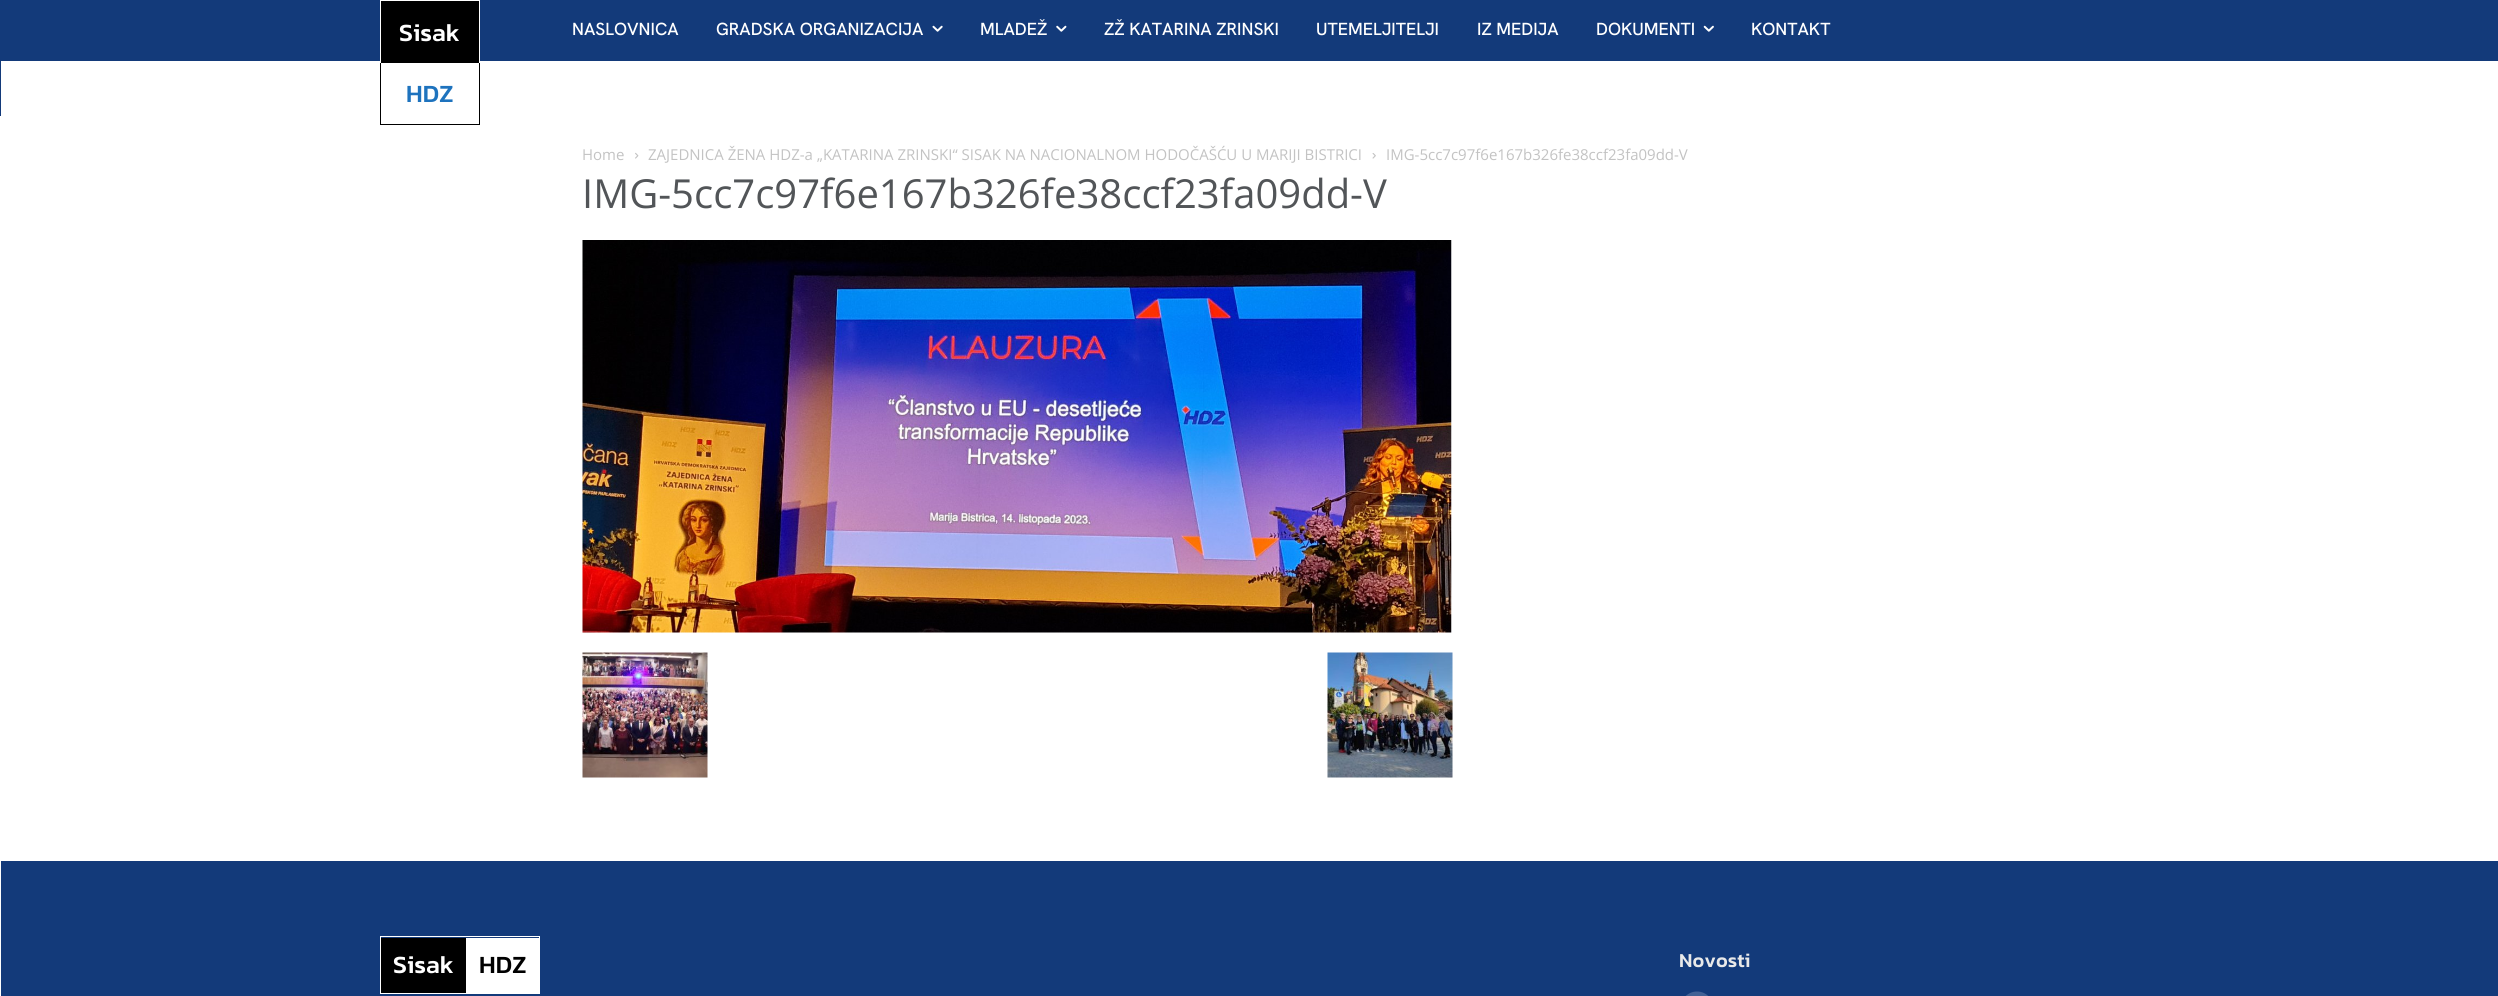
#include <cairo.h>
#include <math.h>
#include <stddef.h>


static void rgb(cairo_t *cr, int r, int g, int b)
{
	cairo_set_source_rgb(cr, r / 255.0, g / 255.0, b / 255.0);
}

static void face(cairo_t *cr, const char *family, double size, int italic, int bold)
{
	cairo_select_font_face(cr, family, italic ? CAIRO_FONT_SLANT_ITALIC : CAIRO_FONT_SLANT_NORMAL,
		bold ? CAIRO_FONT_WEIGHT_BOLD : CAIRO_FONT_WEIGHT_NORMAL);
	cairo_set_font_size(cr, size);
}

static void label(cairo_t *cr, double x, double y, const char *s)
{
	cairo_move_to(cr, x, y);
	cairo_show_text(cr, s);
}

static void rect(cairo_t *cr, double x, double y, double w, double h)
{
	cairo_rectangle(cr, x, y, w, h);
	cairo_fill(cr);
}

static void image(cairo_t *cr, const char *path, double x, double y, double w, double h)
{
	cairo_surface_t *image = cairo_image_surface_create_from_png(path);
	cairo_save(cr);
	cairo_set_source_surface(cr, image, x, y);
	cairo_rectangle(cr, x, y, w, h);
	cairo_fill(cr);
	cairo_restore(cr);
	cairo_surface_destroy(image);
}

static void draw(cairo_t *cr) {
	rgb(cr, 255, 255, 255);
	cairo_paint(cr);
	rgb(cr, 19, 58, 122);
	rect(cr, 0, 0, 2498, 116);
	rgb(cr, 255, 255, 255);
	rect(cr, 1, 61, 2497, 55);
	rgb(cr, 0, 0, 0);
	rect(cr, 381, 1, 98, 62);
	rgb(cr, 255, 255, 255);
	rect(cr, 380, 0, 100, 1);
	rect(cr, 479, 0, 1, 63);
	rect(cr, 380, 0, 1, 63);
	face(cr, "Kanit Medium", 25, 0, 0);
	label(cr, 399, 41, "Sisak");
	rgb(cr, 0, 0, 0);
	rect(cr, 479, 63, 1, 62);
	rect(cr, 380, 124, 100, 1);
	rect(cr, 380, 63, 1, 62);
	rgb(cr, 30, 115, 190);
	label(cr, 406, 102, "HDZ");
	face(cr, "Hanken Grotesk Medium", 17.5, 0, 0);
	rgb(cr, 255, 255, 255);
	label(cr, 572, 35, "NASLOVNICA");
	label(cr, 716, 35, "GRADSKA ORGANIZACIJA");
	image(cr, "image0.png", 932, 25, 11, 7);
	label(cr, 980, 35, "MLADEŽ");
	image(cr, "image1.png", 1056, 25, 11, 7);
	label(cr, 1104, 35, "ZŽ KATARINA ZRINSKI");
	label(cr, 1316, 35, "UTEMELJITELJI");
	label(cr, 1477, 35, "IZ MEDIJA");
	label(cr, 1596, 35, "DOKUMENTI");
	image(cr, "image2.png", 1703, 25, 11, 7);
	label(cr, 1751, 35, "KONTAKT");
	face(cr, "Open Sans", 15, 0, 0);
	rgb(cr, 195, 195, 195);
	label(cr, 582, 160, "Home");
	image(cr, "image3.png", 635, 152, 4, 7);
	label(cr, 648, 160, "ZAJEDNICA ŽENA HDZ-a „KATARINA ZRINSKI“ SISAK NA NACIONALNOM HODOČAŠĆU U MARIJI BISTRICI");
	image(cr, "image4.png", 1372, 153, 4, 6);
	label(cr, 1386, 160, "IMG-5cc7c97f6e167b326fe38ccf23fa09dd-V");
	face(cr, "Open Sans", 40, 0, 0);
	rgb(cr, 82, 85, 88);
	label(cr, 582, 208, "IMG-5cc7c97f6e167b326fe38ccf23fa09dd-V");
	image(cr, "image5.png", 582, 240, 870, 393);
	image(cr, "image6.png", 582, 652, 126, 126);
	image(cr, "image7.png", 1327, 652, 126, 126);
	rgb(cr, 19, 58, 122);
	rect(cr, 1, 861, 2497, 135);
	rgb(cr, 0, 0, 0);
	rect(cr, 381, 938, 85, 55);
	rgb(cr, 255, 255, 255);
	rect(cr, 380, 936, 160, 1);
	rect(cr, 380, 993, 86, 1);
	rect(cr, 380, 936, 1, 58);
	face(cr, "Kanit Medium", 25, 0, 0);
	label(cr, 393, 973, "Sisak");
	rect(cr, 466, 938, 73, 55);
	rect(cr, 539, 936, 1, 58);
	rect(cr, 466, 993, 74, 1);
	rgb(cr, 0, 0, 0);
	label(cr, 479, 973, "HDZ");
	face(cr, "Kanit Medium", 20, 0, 0);
	rgb(cr, 233, 233, 233);
	label(cr, 1679, 967, "Novosti");
	rgb(cr, 66, 97, 149);
	cairo_new_path(cr);
	cairo_move_to(cr, 1697, 991.5);
	cairo_curve_to(cr, 1706.5, 991.5, 1714, 999.5, 1714, 1009.5);
	cairo_curve_to(cr, 1714, 1019.5, 1706.5, 1027.5, 1697, 1027.5);
	cairo_curve_to(cr, 1687.5, 1027.5, 1680, 1019.5, 1680, 1009.5);
	cairo_curve_to(cr, 1680, 999.5, 1687.5, 991.5, 1697, 991.5);
	cairo_close_path(cr);
	cairo_fill(cr);
}

int main(void) {
	cairo_surface_t *surface = cairo_image_surface_create(CAIRO_FORMAT_RGB24, 2498, 996);
	cairo_t *cr = cairo_create(surface);
	cairo_font_options_t *options = cairo_font_options_create();
	cairo_font_options_set_hint_metrics(options, CAIRO_HINT_METRICS_OFF);
	cairo_font_options_set_hint_style(options, CAIRO_HINT_STYLE_NONE);
	cairo_set_font_options(cr, options);
	cairo_set_miter_limit(cr, 4);
	draw(cr);
	cairo_surface_write_to_png(surface, "render.png");
	cairo_font_options_destroy(options);
	cairo_destroy(cr);
	cairo_surface_destroy(surface);
	return 0;
}
